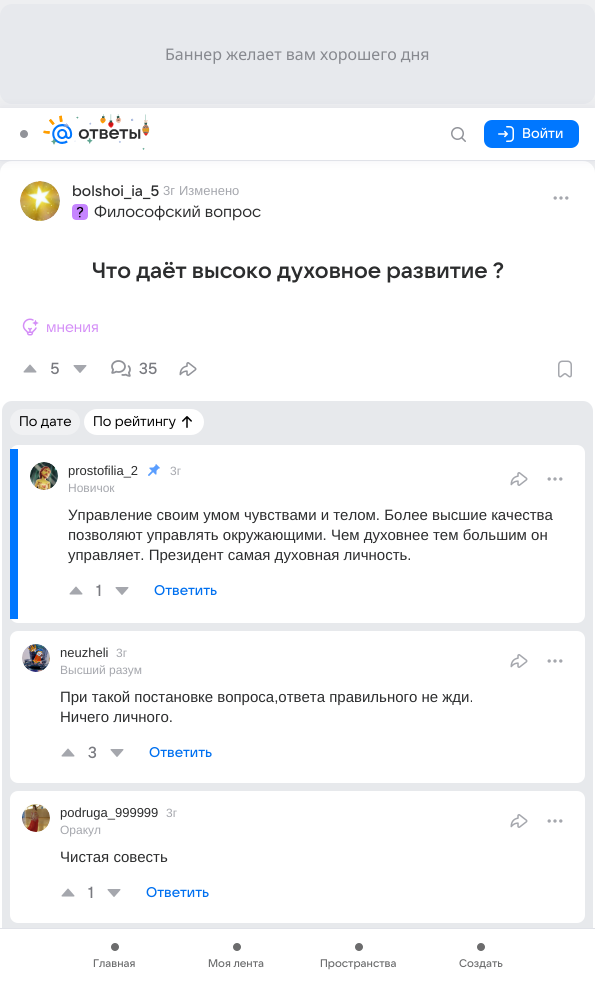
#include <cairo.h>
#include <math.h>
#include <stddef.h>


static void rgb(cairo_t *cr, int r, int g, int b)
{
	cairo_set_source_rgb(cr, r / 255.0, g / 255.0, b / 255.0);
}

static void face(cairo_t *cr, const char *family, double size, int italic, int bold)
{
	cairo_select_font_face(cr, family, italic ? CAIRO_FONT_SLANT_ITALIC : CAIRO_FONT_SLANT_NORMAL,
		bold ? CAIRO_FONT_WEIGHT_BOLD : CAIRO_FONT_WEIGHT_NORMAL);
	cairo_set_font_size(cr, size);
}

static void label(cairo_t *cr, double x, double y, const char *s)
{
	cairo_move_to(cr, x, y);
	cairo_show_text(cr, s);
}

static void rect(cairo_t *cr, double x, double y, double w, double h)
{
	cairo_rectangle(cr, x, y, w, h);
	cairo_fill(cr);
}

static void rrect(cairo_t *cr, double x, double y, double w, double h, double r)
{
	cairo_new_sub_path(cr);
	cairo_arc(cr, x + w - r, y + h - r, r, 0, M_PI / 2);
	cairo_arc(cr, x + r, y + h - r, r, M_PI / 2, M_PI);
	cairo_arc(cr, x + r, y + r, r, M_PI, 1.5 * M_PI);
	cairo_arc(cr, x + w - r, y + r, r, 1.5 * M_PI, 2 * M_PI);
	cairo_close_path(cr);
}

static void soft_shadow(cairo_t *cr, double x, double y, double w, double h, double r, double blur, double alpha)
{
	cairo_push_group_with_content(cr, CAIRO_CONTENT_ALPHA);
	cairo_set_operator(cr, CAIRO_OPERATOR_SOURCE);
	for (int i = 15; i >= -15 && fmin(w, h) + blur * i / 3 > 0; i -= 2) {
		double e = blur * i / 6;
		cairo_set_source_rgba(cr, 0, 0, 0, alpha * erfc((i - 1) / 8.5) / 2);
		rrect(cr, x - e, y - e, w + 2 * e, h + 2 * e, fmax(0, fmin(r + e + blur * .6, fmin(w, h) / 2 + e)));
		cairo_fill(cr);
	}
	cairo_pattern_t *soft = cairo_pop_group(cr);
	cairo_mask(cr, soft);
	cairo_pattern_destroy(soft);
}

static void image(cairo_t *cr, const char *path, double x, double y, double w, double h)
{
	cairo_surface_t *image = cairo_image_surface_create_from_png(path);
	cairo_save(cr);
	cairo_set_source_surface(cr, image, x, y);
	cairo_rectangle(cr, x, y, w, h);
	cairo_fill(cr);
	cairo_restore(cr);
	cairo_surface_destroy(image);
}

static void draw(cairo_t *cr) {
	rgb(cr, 238, 239, 241);
	cairo_paint(cr);
	rgb(cr, 231, 233, 237);
	rrect(cr, 0, 4, 595, 100, 12);
	cairo_fill(cr);
	face(cr, "Noto Sans", 16, 0, 0);
	rgb(cr, 135, 137, 143);
	label(cr, 165, 60, "Баннер желает вам хорошего дня");
	rgb(cr, 255, 255, 255);
	rrect(cr, 0, 161, 595, 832, 12);
	cairo_fill(cr);
	rgb(cr, 0, 16, 61);
	soft_shadow(cr, 0, 108, 595, 53, 0, 6, 0.06);
	rgb(cr, 255, 255, 255);
	rect(cr, 0, 108, 595, 52);
	rgb(cr, 224, 226, 232);
	rect(cr, 0, 160, 595, 1);
	image(cr, "image0.png", 20, 130, 8, 8);
	image(cr, "image1.png", 43, 114, 107, 36);
	image(cr, "image2.png", 451, 127, 15, 15);
	rgb(cr, 0, 119, 255);
	rrect(cr, 484, 120, 95, 28, 8);
	cairo_fill(cr);
	image(cr, "image3.png", 498, 126, 16, 16);
	face(cr, "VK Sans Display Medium", 14, 0, 0);
	rgb(cr, 255, 255, 255);
	label(cr, 522, 138, "Войти");
	rgb(cr, 240, 241, 243);
	cairo_new_path(cr);
	cairo_arc(cr, 40, 201, 20, 0, 2 * M_PI);
	cairo_fill(cr);
	image(cr, "image4.png", 20, 181, 40, 40);
	face(cr, "VK Sans Display Medium", 15, 0, 0);
	rgb(cr, 44, 45, 46);
	label(cr, 72, 196, "bolshoi_ia_5");
	face(cr, "Liberation Sans", 13, 0, 0);
	rgb(cr, 165, 167, 173);
	label(cr, 163, 195, "3г");
	label(cr, 179, 195, "Изменено");
	image(cr, "image5.png", 72, 204, 16, 16);
	face(cr, "VK Sans Display", 16, 0, 0);
	rgb(cr, 44, 45, 46);
	label(cr, 94, 217, "Философский вопрос");
	image(cr, "image6.png", 553, 196, 16, 4);
	face(cr, "VK Sans Display SemiBold", 22, 0, 0);
	label(cr, 92, 278, "Что даёт высоко духовное развитие ?");
	image(cr, "image7.png", 22, 318, 17, 18);
	face(cr, "VK Sans Display", 15, 0, 0);
	rgb(cr, 212, 142, 247);
	label(cr, 46, 332, "мнения");
	image(cr, "image8.png", 23, 364, 14, 9);
	face(cr, "VK Sans Display Medium", 16, 0, 0);
	rgb(cr, 121, 122, 128);
	label(cr, 50, 374, "5");
	image(cr, "image9.png", 73, 365, 14, 8);
	image(cr, "image10.png", 111, 360, 20, 17);
	label(cr, 139, 374, "35");
	image(cr, "image11.png", 179, 362, 18, 14);
	image(cr, "image12.png", 558, 360, 14, 18);
	rgb(cr, 231, 233, 236);
	rrect(cr, 2, 401, 591, 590, 10);
	cairo_fill(cr);
	rgb(cr, 240, 241, 243);
	rrect(cr, 10, 409, 70, 26, 13);
	cairo_fill(cr);
	face(cr, "VK Sans Display", 14, 0, 0);
	rgb(cr, 0, 0, 0);
	label(cr, 19, 426, "По дате");
	rgb(cr, 255, 255, 255);
	rrect(cr, 84, 409, 120, 26, 13);
	cairo_fill(cr);
	rgb(cr, 0, 0, 0);
	label(cr, 93, 426, "По рейтингу");
	image(cr, "image13.png", 182, 416, 10, 12);
	rgb(cr, 255, 255, 255);
	rrect(cr, 10, 445, 575, 178, 8);
	cairo_fill(cr);
	rgb(cr, 0, 119, 255);
	rect(cr, 10, 449, 8, 170);
	rgb(cr, 240, 241, 243);
	cairo_arc(cr, 44, 476, 14, 0, 2 * M_PI);
	cairo_fill(cr);
	image(cr, "image14.png", 30, 462, 28, 28);
	face(cr, "Liberation Sans", 13, 0, 0);
	rgb(cr, 44, 45, 46);
	label(cr, 68, 475, "prostofilia_2");
	face(cr, "Liberation Sans", 12, 0, 0);
	rgb(cr, 165, 167, 173);
	label(cr, 68, 492, "Новичок");
	image(cr, "image15.png", 148, 464, 12, 12);
	label(cr, 170, 475, "3г");
	image(cr, "image16.png", 510, 472, 18, 14);
	image(cr, "image6.png", 547, 477, 16, 4);
	face(cr, "Liberation Sans", 15, 0, 0);
	rgb(cr, 44, 45, 46);
	label(cr, 68, 520, "Управление своим умом чувствами и телом. Более высшие качества");
	label(cr, 68, 540, "позволяют управлять окружающими. Чем духовнее тем большим он");
	label(cr, 68, 560, "управляет. Президент самая духовная личность.");
	image(cr, "image8.png", 69, 586, 14, 9);
	face(cr, "VK Sans Display Medium", 16, 0, 0);
	rgb(cr, 121, 122, 128);
	label(cr, 96, 596, "1");
	image(cr, "image9.png", 115, 587, 14, 8);
	face(cr, "VK Sans Display Medium", 14, 0, 0);
	rgb(cr, 0, 112, 240);
	label(cr, 154, 595, "Ответить");
	rgb(cr, 255, 255, 255);
	rrect(cr, 10, 631, 575, 152, 8);
	cairo_fill(cr);
	rgb(cr, 240, 241, 243);
	cairo_arc(cr, 36, 658, 14, 0, 2 * M_PI);
	cairo_fill(cr);
	image(cr, "image17.png", 22, 644, 28, 28);
	face(cr, "Liberation Sans", 13, 0, 0);
	rgb(cr, 44, 45, 46);
	label(cr, 60, 657, "neuzheli");
	face(cr, "Liberation Sans", 12, 0, 0);
	rgb(cr, 165, 167, 173);
	label(cr, 60, 674, "Высший разум");
	label(cr, 116, 657, "3г");
	image(cr, "image16.png", 510, 654, 18, 14);
	image(cr, "image6.png", 547, 659, 16, 4);
	face(cr, "Liberation Sans", 15, 0, 0);
	rgb(cr, 44, 45, 46);
	label(cr, 60, 702, "При такой постановке вопроса,ответа правильного не жди.");
	label(cr, 60, 722, "Ничего личного.");
	image(cr, "image8.png", 61, 748, 14, 9);
	face(cr, "VK Sans Display Medium", 16, 0, 0);
	rgb(cr, 121, 122, 128);
	label(cr, 88, 758, "3");
	image(cr, "image9.png", 110, 749, 14, 8);
	face(cr, "VK Sans Display Medium", 14, 0, 0);
	rgb(cr, 0, 112, 240);
	label(cr, 149, 757, "Ответить");
	rgb(cr, 255, 255, 255);
	rrect(cr, 10, 791, 575, 132, 8);
	cairo_fill(cr);
	rgb(cr, 240, 241, 243);
	cairo_arc(cr, 36, 818, 14, 0, 2 * M_PI);
	cairo_fill(cr);
	image(cr, "image18.png", 22, 804, 28, 28);
	face(cr, "Liberation Sans", 13, 0, 0);
	rgb(cr, 44, 45, 46);
	label(cr, 60, 817, "podruga_999999");
	face(cr, "Liberation Sans", 12, 0, 0);
	rgb(cr, 165, 167, 173);
	label(cr, 60, 834, "Оракул");
	label(cr, 166, 817, "3г");
	image(cr, "image16.png", 510, 814, 18, 14);
	image(cr, "image6.png", 547, 819, 16, 4);
	face(cr, "Liberation Sans", 15, 0, 0);
	rgb(cr, 44, 45, 46);
	label(cr, 60, 862, "Чистая совесть");
	image(cr, "image8.png", 61, 888, 14, 9);
	face(cr, "VK Sans Display Medium", 16, 0, 0);
	rgb(cr, 121, 122, 128);
	label(cr, 88, 898, "1");
	image(cr, "image9.png", 107, 889, 14, 8);
	face(cr, "VK Sans Display Medium", 14, 0, 0);
	rgb(cr, 0, 112, 240);
	label(cr, 146, 897, "Ответить");
	rgb(cr, 255, 255, 255);
	rect(cr, 2, 929, 591, 52);
	rgb(cr, 224, 226, 232);
	rect(cr, 0, 928, 595, 1);
	image(cr, "image19.png", 111, 943, 8, 8);
	face(cr, "VK Sans Display Medium", 11, 0, 0);
	rgb(cr, 107, 108, 109);
	label(cr, 93, 967, "Главная");
	image(cr, "image19.png", 233, 943, 8, 8);
	label(cr, 208, 967, "Моя лента");
	image(cr, "image19.png", 355, 943, 8, 8);
	label(cr, 320, 967, "Пространства");
	image(cr, "image19.png", 477, 943, 8, 8);
	label(cr, 459, 967, "Создать");
}

int main(void) {
	cairo_surface_t *surface = cairo_image_surface_create(CAIRO_FORMAT_RGB24, 595, 981);
	cairo_t *cr = cairo_create(surface);
	cairo_font_options_t *options = cairo_font_options_create();
	cairo_font_options_set_hint_metrics(options, CAIRO_HINT_METRICS_OFF);
	cairo_font_options_set_hint_style(options, CAIRO_HINT_STYLE_NONE);
	cairo_set_font_options(cr, options);
	cairo_set_miter_limit(cr, 4);
	draw(cr);
	cairo_surface_write_to_png(surface, "render.png");
	cairo_font_options_destroy(options);
	cairo_destroy(cr);
	cairo_surface_destroy(surface);
	return 0;
}
